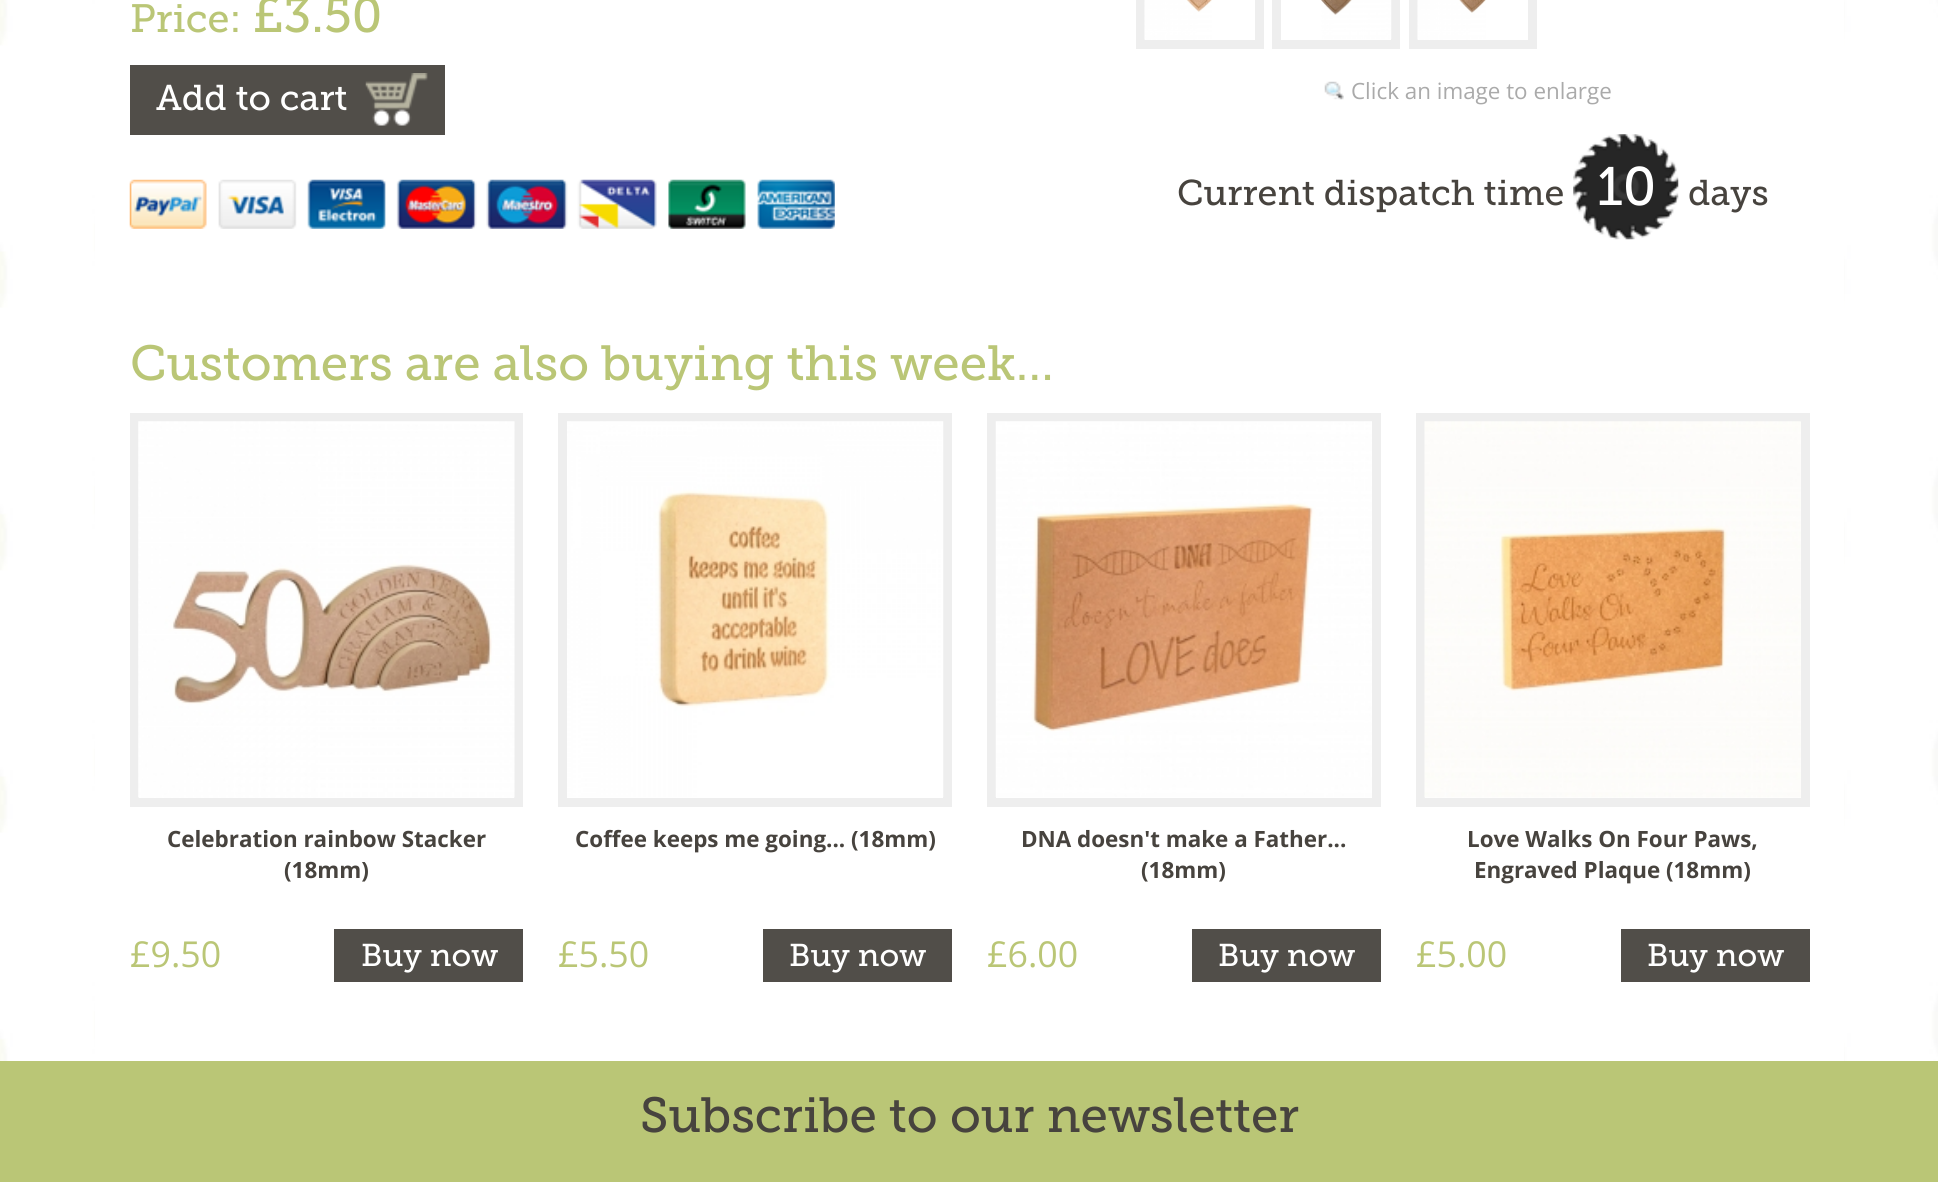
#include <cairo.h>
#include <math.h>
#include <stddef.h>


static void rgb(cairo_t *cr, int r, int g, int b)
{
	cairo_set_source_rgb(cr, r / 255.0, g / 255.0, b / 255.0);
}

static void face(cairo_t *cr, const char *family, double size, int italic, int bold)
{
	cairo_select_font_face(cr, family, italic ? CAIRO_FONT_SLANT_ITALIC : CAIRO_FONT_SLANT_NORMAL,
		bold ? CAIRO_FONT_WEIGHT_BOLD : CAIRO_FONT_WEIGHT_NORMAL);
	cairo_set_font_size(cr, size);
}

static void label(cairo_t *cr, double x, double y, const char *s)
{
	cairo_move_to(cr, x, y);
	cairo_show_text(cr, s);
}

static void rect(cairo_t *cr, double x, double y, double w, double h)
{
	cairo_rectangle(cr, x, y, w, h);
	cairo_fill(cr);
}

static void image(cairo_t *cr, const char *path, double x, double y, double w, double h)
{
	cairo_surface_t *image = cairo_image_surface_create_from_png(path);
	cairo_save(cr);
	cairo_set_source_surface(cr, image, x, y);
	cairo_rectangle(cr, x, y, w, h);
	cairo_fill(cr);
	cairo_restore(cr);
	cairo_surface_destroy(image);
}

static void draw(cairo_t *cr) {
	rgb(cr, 255, 255, 255);
	cairo_paint(cr);
	image(cr, "image0.png", 0, 0, 1938, 1061);
	rgb(cr, 255, 255, 255);
	rect(cr, 95, 0, 1749, 1061);
	face(cr, "Museo Slab", 39.5, 0, 0);
	rgb(cr, 186, 198, 118);
	label(cr, 130, 32, "Price:");
	face(cr, "Museo Slab", 49.25, 0, 0);
	label(cr, 253, 32, "£3.50");
	rgb(cr, 81, 78, 73);
	rect(cr, 130, 65, 315, 70);
	image(cr, "image1.png", 365, 73, 63, 53);
	face(cr, "Museo Slab", 35.75, 0, 0);
	rgb(cr, 255, 255, 255);
	label(cr, 156, 110, "Add to cart");
	image(cr, "image2.png", 129, 179, 706, 50);
	cairo_rectangle(cr, 1140.5, -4.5, 119, 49);
	rgb(cr, 238, 238, 238);
	cairo_set_line_width(cr, 9);
	cairo_stroke(cr);
	image(cr, "image3.png", 1144, 0, 68, 40);
	cairo_rectangle(cr, 1276.5, -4.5, 119, 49);
	cairo_stroke(cr);
	image(cr, "image4.png", 1321, 0, 71, 39);
	cairo_rectangle(cr, 1413.5, -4.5, 119, 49);
	cairo_stroke(cr);
	image(cr, "image5.png", 1417, 0, 69, 40);
	image(cr, "image6.png", 1324, 81, 20, 19);
	face(cr, "Open Sans", 22.4, 0, 0);
	rgb(cr, 170, 170, 170);
	label(cr, 1351, 99, "Click an image to enlarge");
	face(cr, "Museo Slab", 35.75, 0, 0);
	rgb(cr, 71, 67, 62);
	label(cr, 1177, 205, "Current dispatch time");
	image(cr, "image7.png", 1573, 134, 106, 106);
	face(cr, "Museo Slab", 54, 0, 0);
	rgb(cr, 255, 255, 255);
	label(cr, 1597, 205, "10");
	face(cr, "Museo Slab", 35.75, 0, 0);
	rgb(cr, 71, 67, 62);
	label(cr, 1688, 205, "days");
	face(cr, "Museo Slab", 49.25, 0, 0);
	rgb(cr, 186, 198, 118);
	label(cr, 130, 380, "Customers are also buying this week…");
	cairo_rectangle(cr, 134.5, 417.5, 384, 385);
	rgb(cr, 238, 238, 238);
	cairo_stroke(cr);
	image(cr, "image8.png", 138, 421, 377, 377);
	face(cr, "Open Sans", 22.4, 0, 1);
	rgb(cr, 71, 67, 62);
	label(cr, 167, 847, "Celebration rainbow Stacker");
	label(cr, 284, 878, "(18mm)");
	face(cr, "Open Sans", 35.75, 0, 0);
	rgb(cr, 186, 198, 118);
	label(cr, 130, 967, "£9.50");
	rgb(cr, 81, 78, 73);
	rect(cr, 334, 929, 189, 53);
	face(cr, "Museo Slab", 31.5, 0, 0);
	rgb(cr, 255, 255, 255);
	label(cr, 361, 966, "Buy now");
	cairo_rectangle(cr, 562.5, 417.5, 385, 385);
	rgb(cr, 238, 238, 238);
	cairo_stroke(cr);
	image(cr, "image9.png", 567, 421, 377, 376);
	face(cr, "Open Sans", 22.4, 0, 1);
	rgb(cr, 71, 67, 62);
	label(cr, 575, 847, "Coffee keeps me going... (18mm)");
	face(cr, "Open Sans", 35.75, 0, 0);
	rgb(cr, 186, 198, 118);
	label(cr, 558, 967, "£5.50");
	rgb(cr, 81, 78, 73);
	rect(cr, 763, 929, 189, 53);
	face(cr, "Museo Slab", 31.5, 0, 0);
	rgb(cr, 255, 255, 255);
	label(cr, 789, 966, "Buy now");
	cairo_rectangle(cr, 991.5, 417.5, 385, 385);
	rgb(cr, 238, 238, 238);
	cairo_stroke(cr);
	image(cr, "image10.png", 995, 421, 377, 376);
	face(cr, "Open Sans", 22.4, 0, 1);
	rgb(cr, 71, 67, 62);
	label(cr, 1021, 847, "DNA doesn't make a Father...");
	label(cr, 1141, 878, "(18mm)");
	face(cr, "Open Sans", 35.75, 0, 0);
	rgb(cr, 186, 198, 118);
	label(cr, 987, 967, "£6.00");
	rgb(cr, 81, 78, 73);
	rect(cr, 1192, 929, 189, 53);
	face(cr, "Museo Slab", 31.5, 0, 0);
	rgb(cr, 255, 255, 255);
	label(cr, 1218, 966, "Buy now");
	cairo_rectangle(cr, 1420.5, 417.5, 385, 385);
	rgb(cr, 238, 238, 238);
	cairo_stroke(cr);
	image(cr, "image11.png", 1424, 421, 377, 377);
	face(cr, "Open Sans", 22.4, 0, 1);
	rgb(cr, 71, 67, 62);
	label(cr, 1467, 847, "Love Walks On Four Paws,");
	label(cr, 1474, 878, "Engraved Plaque (18mm)");
	face(cr, "Open Sans", 35.75, 0, 0);
	rgb(cr, 186, 198, 118);
	label(cr, 1416, 967, "£5.00");
	rgb(cr, 81, 78, 73);
	rect(cr, 1621, 929, 189, 53);
	face(cr, "Museo Slab", 31.5, 0, 0);
	rgb(cr, 255, 255, 255);
	label(cr, 1647, 966, "Buy now");
	rgb(cr, 186, 198, 118);
	rect(cr, 0, 1061, 1938, 121);
	face(cr, "Museo Slab", 49.25, 0, 0);
	rgb(cr, 71, 67, 62);
	label(cr, 640, 1132, "Subscribe to our newsletter");
}

int main(void) {
	cairo_surface_t *surface = cairo_image_surface_create(CAIRO_FORMAT_RGB24, 1938, 1182);
	cairo_t *cr = cairo_create(surface);
	cairo_font_options_t *options = cairo_font_options_create();
	cairo_font_options_set_hint_metrics(options, CAIRO_HINT_METRICS_OFF);
	cairo_font_options_set_hint_style(options, CAIRO_HINT_STYLE_NONE);
	cairo_set_font_options(cr, options);
	cairo_set_miter_limit(cr, 4);
	draw(cr);
	cairo_surface_write_to_png(surface, "render.png");
	cairo_font_options_destroy(options);
	cairo_destroy(cr);
	cairo_surface_destroy(surface);
	return 0;
}
